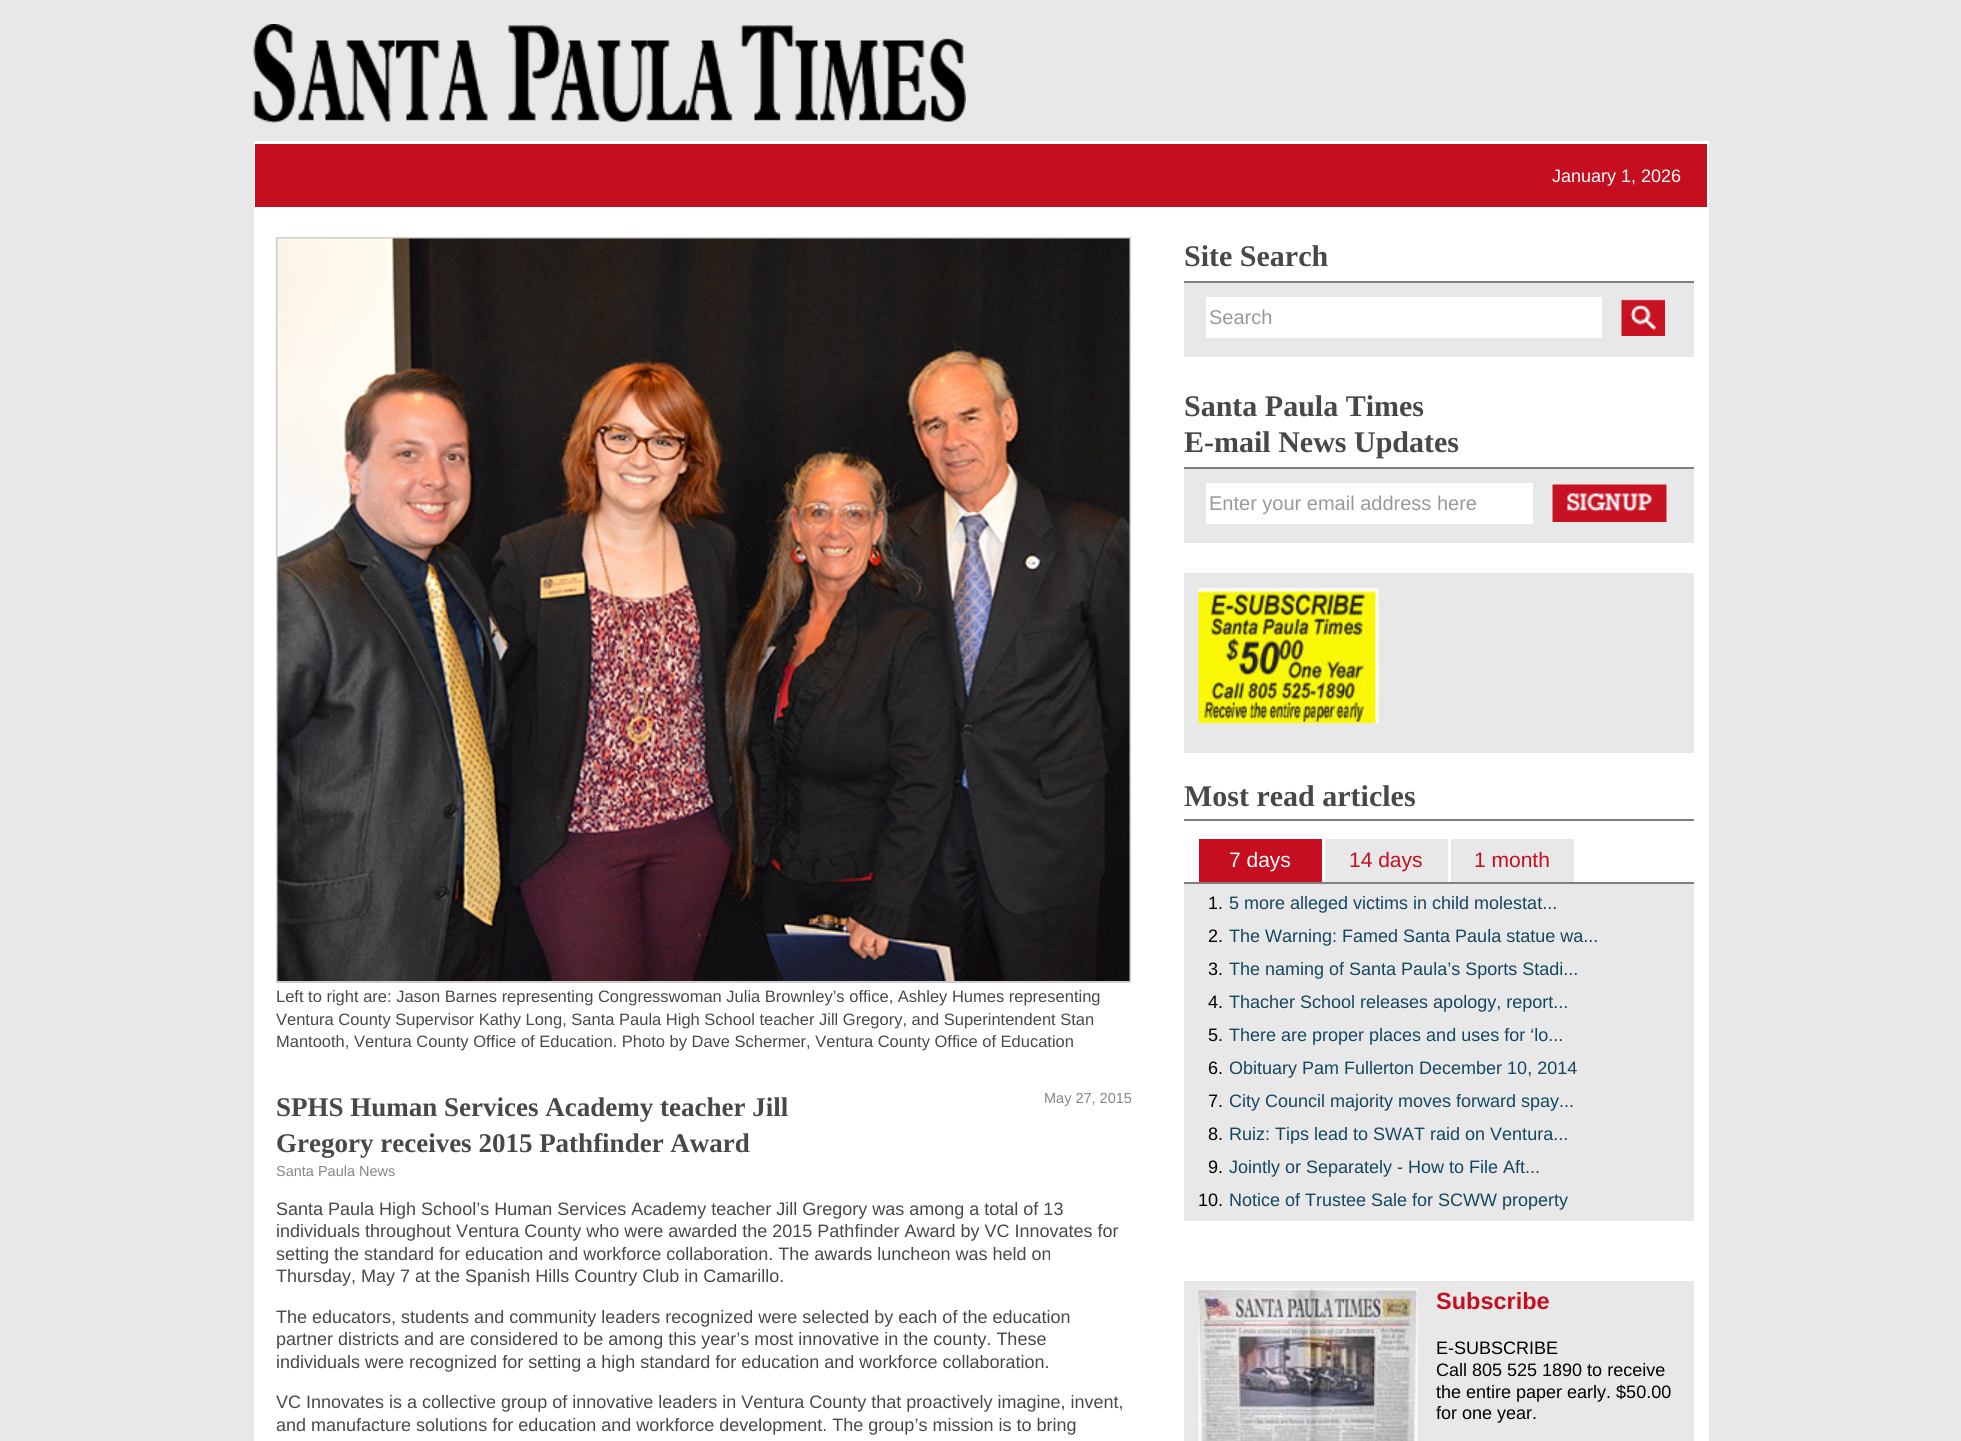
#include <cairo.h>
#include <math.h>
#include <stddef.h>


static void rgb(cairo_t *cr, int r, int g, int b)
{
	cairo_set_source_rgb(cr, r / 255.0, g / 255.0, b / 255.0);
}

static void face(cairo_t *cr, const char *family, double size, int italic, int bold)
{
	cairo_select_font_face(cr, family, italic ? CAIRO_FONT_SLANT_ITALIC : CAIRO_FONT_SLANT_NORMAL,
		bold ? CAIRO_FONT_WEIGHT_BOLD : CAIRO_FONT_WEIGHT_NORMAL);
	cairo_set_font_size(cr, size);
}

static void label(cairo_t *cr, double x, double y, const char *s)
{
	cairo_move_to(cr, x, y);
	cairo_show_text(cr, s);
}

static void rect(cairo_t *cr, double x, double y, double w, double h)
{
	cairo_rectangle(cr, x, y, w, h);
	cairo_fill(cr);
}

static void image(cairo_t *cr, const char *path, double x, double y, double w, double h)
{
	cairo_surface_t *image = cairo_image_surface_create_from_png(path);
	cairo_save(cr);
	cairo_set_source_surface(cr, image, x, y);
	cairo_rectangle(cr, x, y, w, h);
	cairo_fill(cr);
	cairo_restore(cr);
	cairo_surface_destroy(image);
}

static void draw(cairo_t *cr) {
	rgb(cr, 232, 232, 232);
	cairo_paint(cr);
	image(cr, "image0.png", 253, 24, 713, 99);
	rgb(cr, 255, 255, 255);
	rect(cr, 254, 141, 1455, 1300);
	rgb(cr, 197, 14, 31);
	rect(cr, 255, 144, 1452, 63);
	face(cr, "Liberation Sans", 18, 0, 0);
	rgb(cr, 255, 255, 255);
	label(cr, 1552, 182, "January 1, 2026");
	cairo_rectangle(cr, 277, 238, 853, 744);
	rgb(cr, 204, 204, 204);
	cairo_stroke(cr);
	image(cr, "image1.png", 277, 238, 853, 743);
	face(cr, "Liberation Sans", 16.5, 0, 0);
	rgb(cr, 72, 72, 72);
	label(cr, 276, 1002, "Left to right are: Jason Barnes representing Congresswoman Julia Brownley’s office, Ashley Humes representing");
	label(cr, 276, 1025, "Ventura County Supervisor Kathy Long, Santa Paula High School teacher Jill Gregory, and Superintendent Stan");
	label(cr, 276, 1047, "Mantooth, Ventura County Office of Education. Photo by Dave Schermer, Ventura County Office of Education");
	face(cr, "Liberation Serif", 27, 0, 1);
	label(cr, 276, 1116, "SPHS Human Services Academy teacher Jill");
	label(cr, 276, 1152, "Gregory receives 2015 Pathfinder Award");
	face(cr, "Liberation Sans", 14.5, 0, 0);
	rgb(cr, 133, 133, 133);
	label(cr, 1044, 1103, "May 27, 2015");
	label(cr, 276, 1176, "Santa Paula News");
	face(cr, "Liberation Sans", 18, 0, 0);
	rgb(cr, 72, 72, 72);
	label(cr, 276, 1215, "Santa Paula High School’s Human Services Academy teacher Jill Gregory was among a total of 13");
	label(cr, 276, 1237, "individuals throughout Ventura County who were awarded the 2015 Pathfinder Award by VC Innovates for");
	label(cr, 276, 1260, "setting the standard for education and workforce collaboration. The awards luncheon was held on");
	label(cr, 276, 1282, "Thursday, May 7 at the Spanish Hills Country Club in Camarillo.");
	label(cr, 276, 1323, "The educators, students and community leaders recognized were selected by each of the education");
	label(cr, 276, 1345, "partner districts and are considered to be among this year’s most innovative in the county. These");
	label(cr, 276, 1368, "individuals were recognized for setting a high standard for education and workforce collaboration.");
	label(cr, 276, 1408, "VC Innovates is a collective group of innovative leaders in Ventura County that proactively imagine, invent,");
	label(cr, 276, 1431, "and manufacture solutions for education and workforce development. The group’s mission is to bring");
	rgb(cr, 127, 127, 127);
	rect(cr, 1184, 281, 510, 2);
	face(cr, "Liberation Serif", 30, 0, 1);
	rgb(cr, 72, 72, 72);
	label(cr, 1184, 266, "Site Search");
	rgb(cr, 232, 232, 232);
	rect(cr, 1184, 283, 510, 74);
	rgb(cr, 255, 255, 255);
	rect(cr, 1206, 297, 396, 41);
	face(cr, "Liberation Sans", 20, 0, 0);
	rgb(cr, 153, 153, 153);
	label(cr, 1209, 324, "Search");
	image(cr, "image2.png", 1621, 299, 44, 37);
	rgb(cr, 127, 127, 127);
	rect(cr, 1184, 467, 510, 2);
	face(cr, "Liberation Serif", 30, 0, 1);
	rgb(cr, 72, 72, 72);
	label(cr, 1184, 416, "Santa Paula Times");
	label(cr, 1184, 452, "E-mail News Updates");
	rgb(cr, 232, 232, 232);
	rect(cr, 1184, 469, 510, 74);
	rgb(cr, 255, 255, 255);
	rect(cr, 1206, 483, 327, 41);
	face(cr, "Liberation Sans", 20, 0, 0);
	rgb(cr, 153, 153, 153);
	label(cr, 1209, 510, "Enter your email address here");
	image(cr, "image3.png", 1552, 484, 115, 38);
	rgb(cr, 232, 232, 232);
	rect(cr, 1184, 573, 510, 180);
	image(cr, "image4.png", 1198, 588, 181, 135);
	rgb(cr, 127, 127, 127);
	rect(cr, 1184, 819, 510, 2);
	face(cr, "Liberation Serif", 30, 0, 1);
	rgb(cr, 72, 72, 72);
	label(cr, 1184, 806, "Most read articles");
	rgb(cr, 197, 14, 31);
	rect(cr, 1199, 839, 123, 43);
	face(cr, "Liberation Sans", 21, 0, 0);
	rgb(cr, 255, 255, 255);
	label(cr, 1229, 867, "7 days");
	rgb(cr, 232, 232, 232);
	rect(cr, 1325, 839, 123, 43);
	rgb(cr, 197, 14, 31);
	label(cr, 1349, 867, "14 days");
	rgb(cr, 232, 232, 232);
	rect(cr, 1451, 839, 123, 43);
	rgb(cr, 197, 14, 31);
	label(cr, 1474, 867, "1 month");
	rgb(cr, 232, 232, 232);
	rect(cr, 1184, 884, 510, 337);
	rgb(cr, 127, 127, 127);
	rect(cr, 1184, 882, 510, 2);
	face(cr, "Liberation Sans", 18, 0, 0);
	rgb(cr, 0, 0, 0);
	label(cr, 1208, 909, "1.");
	rgb(cr, 19, 70, 95);
	label(cr, 1229, 909, "5 more alleged victims in child molestat...");
	rgb(cr, 0, 0, 0);
	label(cr, 1208, 942, "2.");
	rgb(cr, 19, 70, 95);
	label(cr, 1229, 942, "The Warning: Famed Santa Paula statue wa...");
	rgb(cr, 0, 0, 0);
	label(cr, 1208, 975, "3.");
	rgb(cr, 19, 70, 95);
	label(cr, 1229, 975, "The naming of Santa Paula’s Sports Stadi...");
	rgb(cr, 0, 0, 0);
	label(cr, 1208, 1008, "4.");
	rgb(cr, 19, 70, 95);
	label(cr, 1229, 1008, "Thacher School releases apology, report...");
	rgb(cr, 0, 0, 0);
	label(cr, 1208, 1041, "5.");
	rgb(cr, 19, 70, 95);
	label(cr, 1229, 1041, "There are proper places and uses for ‘lo...");
	rgb(cr, 0, 0, 0);
	label(cr, 1208, 1074, "6.");
	rgb(cr, 19, 70, 95);
	label(cr, 1229, 1074, "Obituary Pam Fullerton December 10, 2014");
	rgb(cr, 0, 0, 0);
	label(cr, 1208, 1107, "7.");
	rgb(cr, 19, 70, 95);
	label(cr, 1229, 1107, "City Council majority moves forward spay...");
	rgb(cr, 0, 0, 0);
	label(cr, 1208, 1140, "8.");
	rgb(cr, 19, 70, 95);
	label(cr, 1229, 1140, "Ruiz: Tips lead to SWAT raid on Ventura...");
	rgb(cr, 0, 0, 0);
	label(cr, 1208, 1173, "9.");
	rgb(cr, 19, 70, 95);
	label(cr, 1229, 1173, "Jointly or Separately - How to File Aft...");
	rgb(cr, 0, 0, 0);
	label(cr, 1198, 1206, "10.");
	rgb(cr, 19, 70, 95);
	label(cr, 1229, 1206, "Notice of Trustee Sale for SCWW property");
	rgb(cr, 232, 232, 232);
	rect(cr, 1184, 1281, 510, 160);
	image(cr, "image5.png", 1198, 1288, 220, 153);
	face(cr, "Liberation Sans", 23.5, 0, 1);
	rgb(cr, 197, 14, 31);
	label(cr, 1436, 1309, "Subscribe");
	face(cr, "Liberation Sans", 18, 0, 0);
	rgb(cr, 0, 0, 0);
	label(cr, 1436, 1354, "E-SUBSCRIBE");
	label(cr, 1436, 1376, "Call 805 525 1890 to receive");
	label(cr, 1436, 1398, "the entire paper early. $50.00");
	label(cr, 1436, 1419, "for one year.");
}

int main(void) {
	cairo_surface_t *surface = cairo_image_surface_create(CAIRO_FORMAT_RGB24, 1961, 1441);
	cairo_t *cr = cairo_create(surface);
	cairo_font_options_t *options = cairo_font_options_create();
	cairo_font_options_set_hint_metrics(options, CAIRO_HINT_METRICS_OFF);
	cairo_font_options_set_hint_style(options, CAIRO_HINT_STYLE_NONE);
	cairo_set_font_options(cr, options);
	cairo_set_miter_limit(cr, 4);
	draw(cr);
	cairo_surface_write_to_png(surface, "render.png");
	cairo_font_options_destroy(options);
	cairo_destroy(cr);
	cairo_surface_destroy(surface);
	return 0;
}
